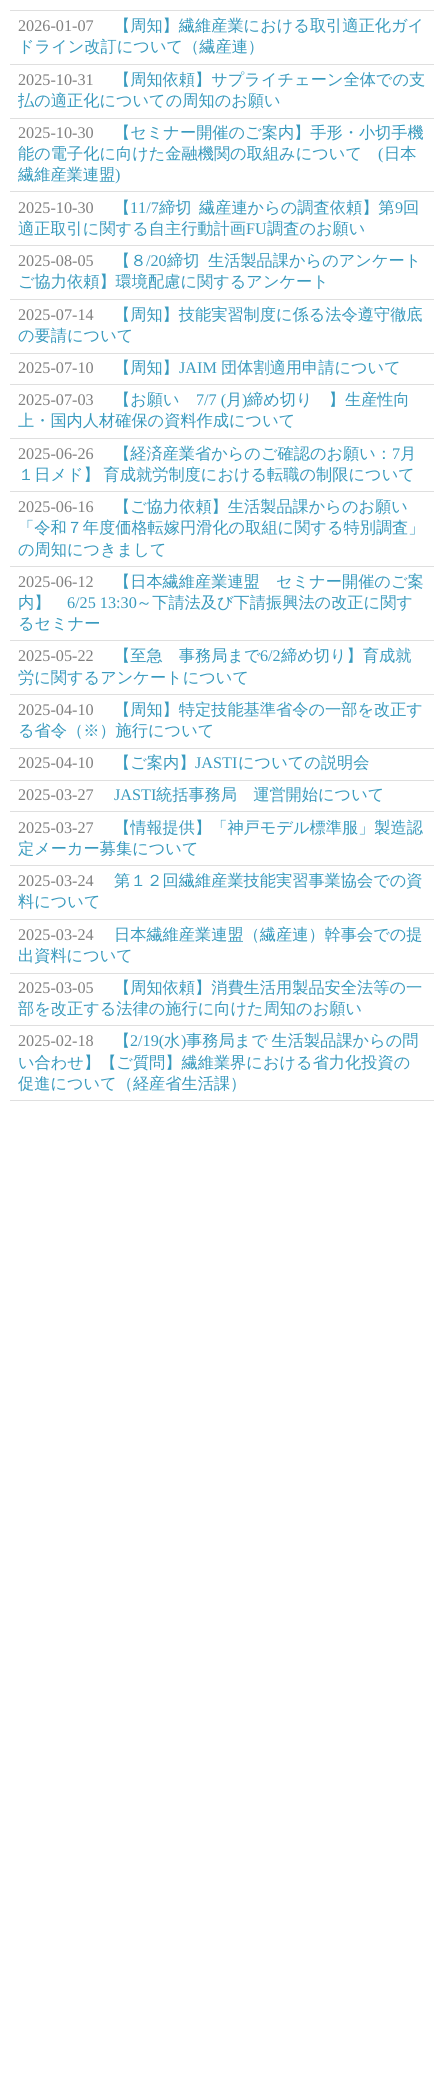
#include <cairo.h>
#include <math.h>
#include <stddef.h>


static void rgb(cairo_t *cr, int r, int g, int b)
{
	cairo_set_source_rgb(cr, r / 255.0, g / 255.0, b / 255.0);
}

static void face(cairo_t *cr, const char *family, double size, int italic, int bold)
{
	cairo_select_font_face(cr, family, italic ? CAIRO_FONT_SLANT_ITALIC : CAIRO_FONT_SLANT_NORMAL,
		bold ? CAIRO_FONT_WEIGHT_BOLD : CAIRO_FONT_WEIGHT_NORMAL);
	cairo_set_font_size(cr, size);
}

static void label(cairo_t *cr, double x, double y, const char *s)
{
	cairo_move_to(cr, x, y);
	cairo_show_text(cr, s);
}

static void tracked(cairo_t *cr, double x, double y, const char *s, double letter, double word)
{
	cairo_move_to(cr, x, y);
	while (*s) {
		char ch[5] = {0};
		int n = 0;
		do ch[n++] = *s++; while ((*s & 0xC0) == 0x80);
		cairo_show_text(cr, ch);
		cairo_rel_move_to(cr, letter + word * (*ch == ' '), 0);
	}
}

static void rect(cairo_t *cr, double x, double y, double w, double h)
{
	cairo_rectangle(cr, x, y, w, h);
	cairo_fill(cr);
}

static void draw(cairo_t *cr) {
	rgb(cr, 255, 255, 255);
	cairo_paint(cr);
	rgb(cr, 223, 223, 223);
	rect(cr, 10, 10, 424, 1);
	rect(cr, 10, 64, 424, 1);
	face(cr, "Liberation Serif", 16.2, 0, 0);
	rgb(cr, 128, 128, 128);
	label(cr, 18, 31, "2026-01-07");
	face(cr, "WenQuanYi Zen Hei Medium", 16.2, 0, 0);
	rgb(cr, 56, 154, 190);
	label(cr, 114, 31, "【周知】繊維産業における取引適正化ガイ");
	label(cr, 18, 52, "ドライン改訂について（繊産連）");
	rgb(cr, 223, 223, 223);
	rect(cr, 10, 118, 424, 1);
	face(cr, "Liberation Serif", 16.2, 0, 0);
	rgb(cr, 128, 128, 128);
	label(cr, 18, 85, "2025-10-31");
	face(cr, "WenQuanYi Zen Hei Medium", 16.2, 0, 0);
	rgb(cr, 56, 154, 190);
	label(cr, 114, 85, "【周知依頼】サプライチェーン全体での支");
	label(cr, 18, 106, "払の適正化についての周知のお願い");
	rgb(cr, 223, 223, 223);
	rect(cr, 10, 191, 424, 1);
	face(cr, "Liberation Serif", 16.2, 0, 0);
	rgb(cr, 128, 128, 128);
	label(cr, 18, 138, "2025-10-30");
	face(cr, "WenQuanYi Zen Hei Medium", 16.2, 0, 0);
	rgb(cr, 56, 154, 190);
	label(cr, 114, 138, "【セミナー開催のご案内】手形・小切手機");
	label(cr, 18, 159, "能の電子化に向けた金融機関の取組みについて");
	face(cr, "Liberation Serif", 16.2, 0, 0);
	label(cr, 378, 159, "(");
	face(cr, "WenQuanYi Zen Hei Medium", 16.2, 0, 0);
	label(cr, 384, 159, "日本");
	label(cr, 18, 180, "繊維産業連盟");
	face(cr, "Liberation Serif", 16.2, 0, 0);
	label(cr, 115, 180, ")");
	rgb(cr, 223, 223, 223);
	rect(cr, 10, 245, 424, 1);
	rgb(cr, 128, 128, 128);
	label(cr, 18, 213, "2025-10-30");
	face(cr, "WenQuanYi Zen Hei Medium", 16.2, 0, 0);
	rgb(cr, 56, 154, 190);
	label(cr, 114, 213, "【");
	face(cr, "Liberation Serif", 16.2, 0, 0);
	label(cr, 130, 213, "11/7");
	face(cr, "WenQuanYi Zen Hei Medium", 16.2, 0, 0);
	label(cr, 159, 213, "締切");
	label(cr, 199, 213, "繊産連からの調査依頼】第");
	face(cr, "Liberation Serif", 16.2, 0, 0);
	label(cr, 395, 213, "9");
	face(cr, "WenQuanYi Zen Hei Medium", 16.2, 0, 0);
	label(cr, 403, 213, "回");
	label(cr, 18, 234, "適正取引に関する自主行動計画");
	face(cr, "Liberation Serif", 16.2, 0, 0);
	label(cr, 246, 234, "FU");
	face(cr, "WenQuanYi Zen Hei Medium", 16.2, 0, 0);
	label(cr, 267, 234, "調査のお願い");
	rgb(cr, 223, 223, 223);
	rect(cr, 10, 299, 424, 1);
	face(cr, "Liberation Serif", 16.2, 0, 0);
	rgb(cr, 128, 128, 128);
	label(cr, 18, 266, "2025-08-05");
	face(cr, "WenQuanYi Zen Hei Medium", 16.2, 0, 0);
	rgb(cr, 56, 154, 190);
	label(cr, 114, 266, "【８");
	face(cr, "Liberation Serif", 16.2, 0, 0);
	label(cr, 146, 266, "/20");
	face(cr, "WenQuanYi Zen Hei Medium", 16.2, 0, 0);
	label(cr, 167, 266, "締切");
	label(cr, 208, 266, "生活製品課からのアンケート");
	label(cr, 18, 287, "ご協力依頼】環境配慮に関するアンケート");
	rgb(cr, 223, 223, 223);
	rect(cr, 10, 353, 424, 1);
	face(cr, "Liberation Serif", 16.2, 0, 0);
	rgb(cr, 128, 128, 128);
	label(cr, 18, 320, "2025-07-14");
	face(cr, "WenQuanYi Zen Hei Medium", 16.2, 0, 0);
	rgb(cr, 56, 154, 190);
	label(cr, 114, 320, "【周知】技能実習制度に係る法令遵守徹底");
	label(cr, 18, 341, "の要請について");
	rgb(cr, 223, 223, 223);
	rect(cr, 10, 384, 424, 1);
	face(cr, "Liberation Serif", 16.2, 0, 0);
	rgb(cr, 128, 128, 128);
	label(cr, 18, 373, "2025-07-10");
	face(cr, "WenQuanYi Zen Hei Medium", 16.2, 0, 0);
	rgb(cr, 56, 154, 190);
	label(cr, 114, 373, "【周知】");
	face(cr, "Liberation Serif", 16.2, 0, 0);
	label(cr, 179, 373, "JAIM");
	face(cr, "WenQuanYi Zen Hei Medium", 16.2, 0, 0);
	label(cr, 221, 373, "団体割適用申請について");
	rgb(cr, 223, 223, 223);
	rect(cr, 10, 438, 424, 1);
	face(cr, "Liberation Serif", 16.2, 0, 0);
	rgb(cr, 128, 128, 128);
	label(cr, 18, 405, "2025-07-03");
	face(cr, "WenQuanYi Zen Hei Medium", 16.2, 0, 0);
	rgb(cr, 56, 154, 190);
	label(cr, 114, 405, "【お願い");
	face(cr, "Liberation Serif", 16.2, 0, 0);
	label(cr, 196, 405, "7/7 (");
	face(cr, "WenQuanYi Zen Hei Medium", 16.2, 0, 0);
	label(cr, 226, 405, "月");
	face(cr, "Liberation Serif", 16.2, 0, 0);
	label(cr, 242, 405, ")");
	face(cr, "WenQuanYi Zen Hei Medium", 16.2, 0, 0);
	label(cr, 247, 405, "締め切り　】生産性向");
	label(cr, 18, 426, "上・国内人材確保の資料作成について");
	rgb(cr, 223, 223, 223);
	rect(cr, 10, 491, 424, 1);
	face(cr, "Liberation Serif", 16.2, 0, 0);
	rgb(cr, 128, 128, 128);
	label(cr, 18, 459, "2025-06-26");
	face(cr, "WenQuanYi Zen Hei Medium", 16.2, 0, 0);
	rgb(cr, 56, 154, 190);
	label(cr, 114, 459, "【経済産業省からのご確認のお願い：");
	face(cr, "Liberation Serif", 16.2, 0, 0);
	label(cr, 392, 459, "7");
	face(cr, "WenQuanYi Zen Hei Medium", 16.2, 0, 0);
	label(cr, 400, 459, "月");
	tracked(cr, 18, 480, "１日メド】 育成就労制度における転職の制限について", 0, -1);
	rgb(cr, 223, 223, 223);
	rect(cr, 10, 566, 424, 1);
	face(cr, "Liberation Serif", 16.2, 0, 0);
	rgb(cr, 128, 128, 128);
	label(cr, 18, 512, "2025-06-16");
	face(cr, "WenQuanYi Zen Hei Medium", 16.2, 0, 0);
	rgb(cr, 56, 154, 190);
	label(cr, 114, 512, "【ご協力依頼】生活製品課からのお願い");
	label(cr, 18, 533, "「令和７年度価格転嫁円滑化の取組に関する特別調査」");
	label(cr, 18, 555, "の周知につきまして");
	rgb(cr, 223, 223, 223);
	rect(cr, 10, 640, 424, 1);
	face(cr, "Liberation Serif", 16.2, 0, 0);
	rgb(cr, 128, 128, 128);
	label(cr, 18, 587, "2025-06-12");
	face(cr, "WenQuanYi Zen Hei Medium", 16.2, 0, 0);
	rgb(cr, 56, 154, 190);
	label(cr, 114, 587, "【日本繊維産業連盟　セミナー開催のご案");
	label(cr, 18, 608, "内】");
	face(cr, "Liberation Serif", 16.2, 0, 0);
	label(cr, 67, 608, "6/25 13:30");
	face(cr, "WenQuanYi Zen Hei Medium", 16.2, 0, 0);
	label(cr, 136, 608, "～下請法及び下請振興法の改正に関す");
	label(cr, 18, 629, "るセミナー");
	rgb(cr, 223, 223, 223);
	rect(cr, 10, 694, 424, 1);
	face(cr, "Liberation Serif", 16.2, 0, 0);
	rgb(cr, 128, 128, 128);
	label(cr, 18, 661, "2025-05-22");
	face(cr, "WenQuanYi Zen Hei Medium", 16.2, 0, 0);
	rgb(cr, 56, 154, 190);
	label(cr, 114, 661, "【至急　事務局まで");
	face(cr, "Liberation Serif", 16.2, 0, 0);
	label(cr, 260, 661, "6/2");
	face(cr, "WenQuanYi Zen Hei Medium", 16.2, 0, 0);
	label(cr, 281, 661, "締め切り】育成就");
	label(cr, 18, 683, "労に関するアンケートについて");
	rgb(cr, 223, 223, 223);
	rect(cr, 10, 748, 424, 1);
	face(cr, "Liberation Serif", 16.2, 0, 0);
	rgb(cr, 128, 128, 128);
	label(cr, 18, 715, "2025-04-10");
	face(cr, "WenQuanYi Zen Hei Medium", 16.2, 0, 0);
	rgb(cr, 56, 154, 190);
	label(cr, 114, 715, "【周知】特定技能基準省令の一部を改正す");
	label(cr, 18, 736, "る省令（※）施行について");
	rgb(cr, 223, 223, 223);
	rect(cr, 10, 780, 424, 1);
	face(cr, "Liberation Serif", 16.2, 0, 0);
	rgb(cr, 128, 128, 128);
	label(cr, 18, 768, "2025-04-10");
	face(cr, "WenQuanYi Zen Hei Medium", 16.2, 0, 0);
	rgb(cr, 56, 154, 190);
	label(cr, 114, 768, "【ご案内】");
	face(cr, "Liberation Serif", 16.2, 0, 0);
	label(cr, 195, 768, "JASTI");
	face(cr, "WenQuanYi Zen Hei Medium", 16.2, 0, 0);
	label(cr, 238, 768, "についての説明会");
	rgb(cr, 223, 223, 223);
	rect(cr, 10, 811, 424, 1);
	face(cr, "Liberation Serif", 16.2, 0, 0);
	rgb(cr, 128, 128, 128);
	label(cr, 18, 800, "2025-03-27");
	rgb(cr, 56, 154, 190);
	label(cr, 114, 800, "JASTI");
	face(cr, "WenQuanYi Zen Hei Medium", 16.2, 0, 0);
	label(cr, 156, 800, "統括事務局　運営開始について");
	rgb(cr, 223, 223, 223);
	rect(cr, 10, 865, 424, 1);
	face(cr, "Liberation Serif", 16.2, 0, 0);
	rgb(cr, 128, 128, 128);
	label(cr, 18, 833, "2025-03-27");
	face(cr, "WenQuanYi Zen Hei Medium", 16.2, 0, 0);
	rgb(cr, 56, 154, 190);
	label(cr, 114, 833, "【情報提供】「神戸モデル標準服」製造認");
	label(cr, 18, 854, "定メーカー募集について");
	rgb(cr, 223, 223, 223);
	rect(cr, 10, 919, 424, 1);
	face(cr, "Liberation Serif", 16.2, 0, 0);
	rgb(cr, 128, 128, 128);
	label(cr, 18, 886, "2025-03-24");
	face(cr, "WenQuanYi Zen Hei Medium", 16.2, 0, 0);
	rgb(cr, 56, 154, 190);
	label(cr, 114, 886, "第１２回繊維産業技能実習事業協会での資");
	label(cr, 18, 907, "料について");
	rgb(cr, 223, 223, 223);
	rect(cr, 10, 973, 424, 1);
	face(cr, "Liberation Serif", 16.2, 0, 0);
	rgb(cr, 128, 128, 128);
	label(cr, 18, 940, "2025-03-24");
	face(cr, "WenQuanYi Zen Hei Medium", 16.2, 0, 0);
	rgb(cr, 56, 154, 190);
	label(cr, 114, 940, "日本繊維産業連盟（繊産連）幹事会での提");
	label(cr, 18, 961, "出資料について");
	rgb(cr, 223, 223, 223);
	rect(cr, 10, 1025, 424, 1);
	face(cr, "Liberation Serif", 16.2, 0, 0);
	rgb(cr, 128, 128, 128);
	label(cr, 18, 993, "2025-03-05");
	face(cr, "WenQuanYi Zen Hei Medium", 16.2, 0, 0);
	rgb(cr, 56, 154, 190);
	label(cr, 114, 993, "【周知依頼】消費生活用製品安全法等の一");
	label(cr, 18, 1014, "部を改正する法律の施行に向けた周知のお願い");
	rgb(cr, 223, 223, 223);
	rect(cr, 10, 1100, 424, 1);
	face(cr, "Liberation Serif", 16.2, 0, 0);
	rgb(cr, 128, 128, 128);
	label(cr, 18, 1046, "2025-02-18");
	face(cr, "WenQuanYi Zen Hei Medium", 16.2, 0, 0);
	rgb(cr, 56, 154, 190);
	label(cr, 114, 1046, "【");
	face(cr, "Liberation Serif", 16.2, 0, 0);
	label(cr, 130, 1046, "2/19(");
	face(cr, "WenQuanYi Zen Hei Medium", 16.2, 0, 0);
	label(cr, 164, 1046, "水");
	face(cr, "Liberation Serif", 16.2, 0, 0);
	label(cr, 181, 1046, ")");
	face(cr, "WenQuanYi Zen Hei Medium", 16.2, 0, 0);
	tracked(cr, 186, 1046, "事務局まで 生活製品課からの問", 0, -1);
	label(cr, 18, 1068, "い合わせ】【ご質問】繊維業界における省力化投資の");
	label(cr, 18, 1089, "促進について（経産省生活課）");
}

int main(void) {
	cairo_surface_t *surface = cairo_image_surface_create(CAIRO_FORMAT_RGB24, 443, 2081);
	cairo_t *cr = cairo_create(surface);
	cairo_font_options_t *options = cairo_font_options_create();
	cairo_font_options_set_hint_metrics(options, CAIRO_HINT_METRICS_OFF);
	cairo_font_options_set_hint_style(options, CAIRO_HINT_STYLE_NONE);
	cairo_set_font_options(cr, options);
	cairo_set_miter_limit(cr, 4);
	draw(cr);
	cairo_surface_write_to_png(surface, "render.png");
	cairo_font_options_destroy(options);
	cairo_destroy(cr);
	cairo_surface_destroy(surface);
	return 0;
}
